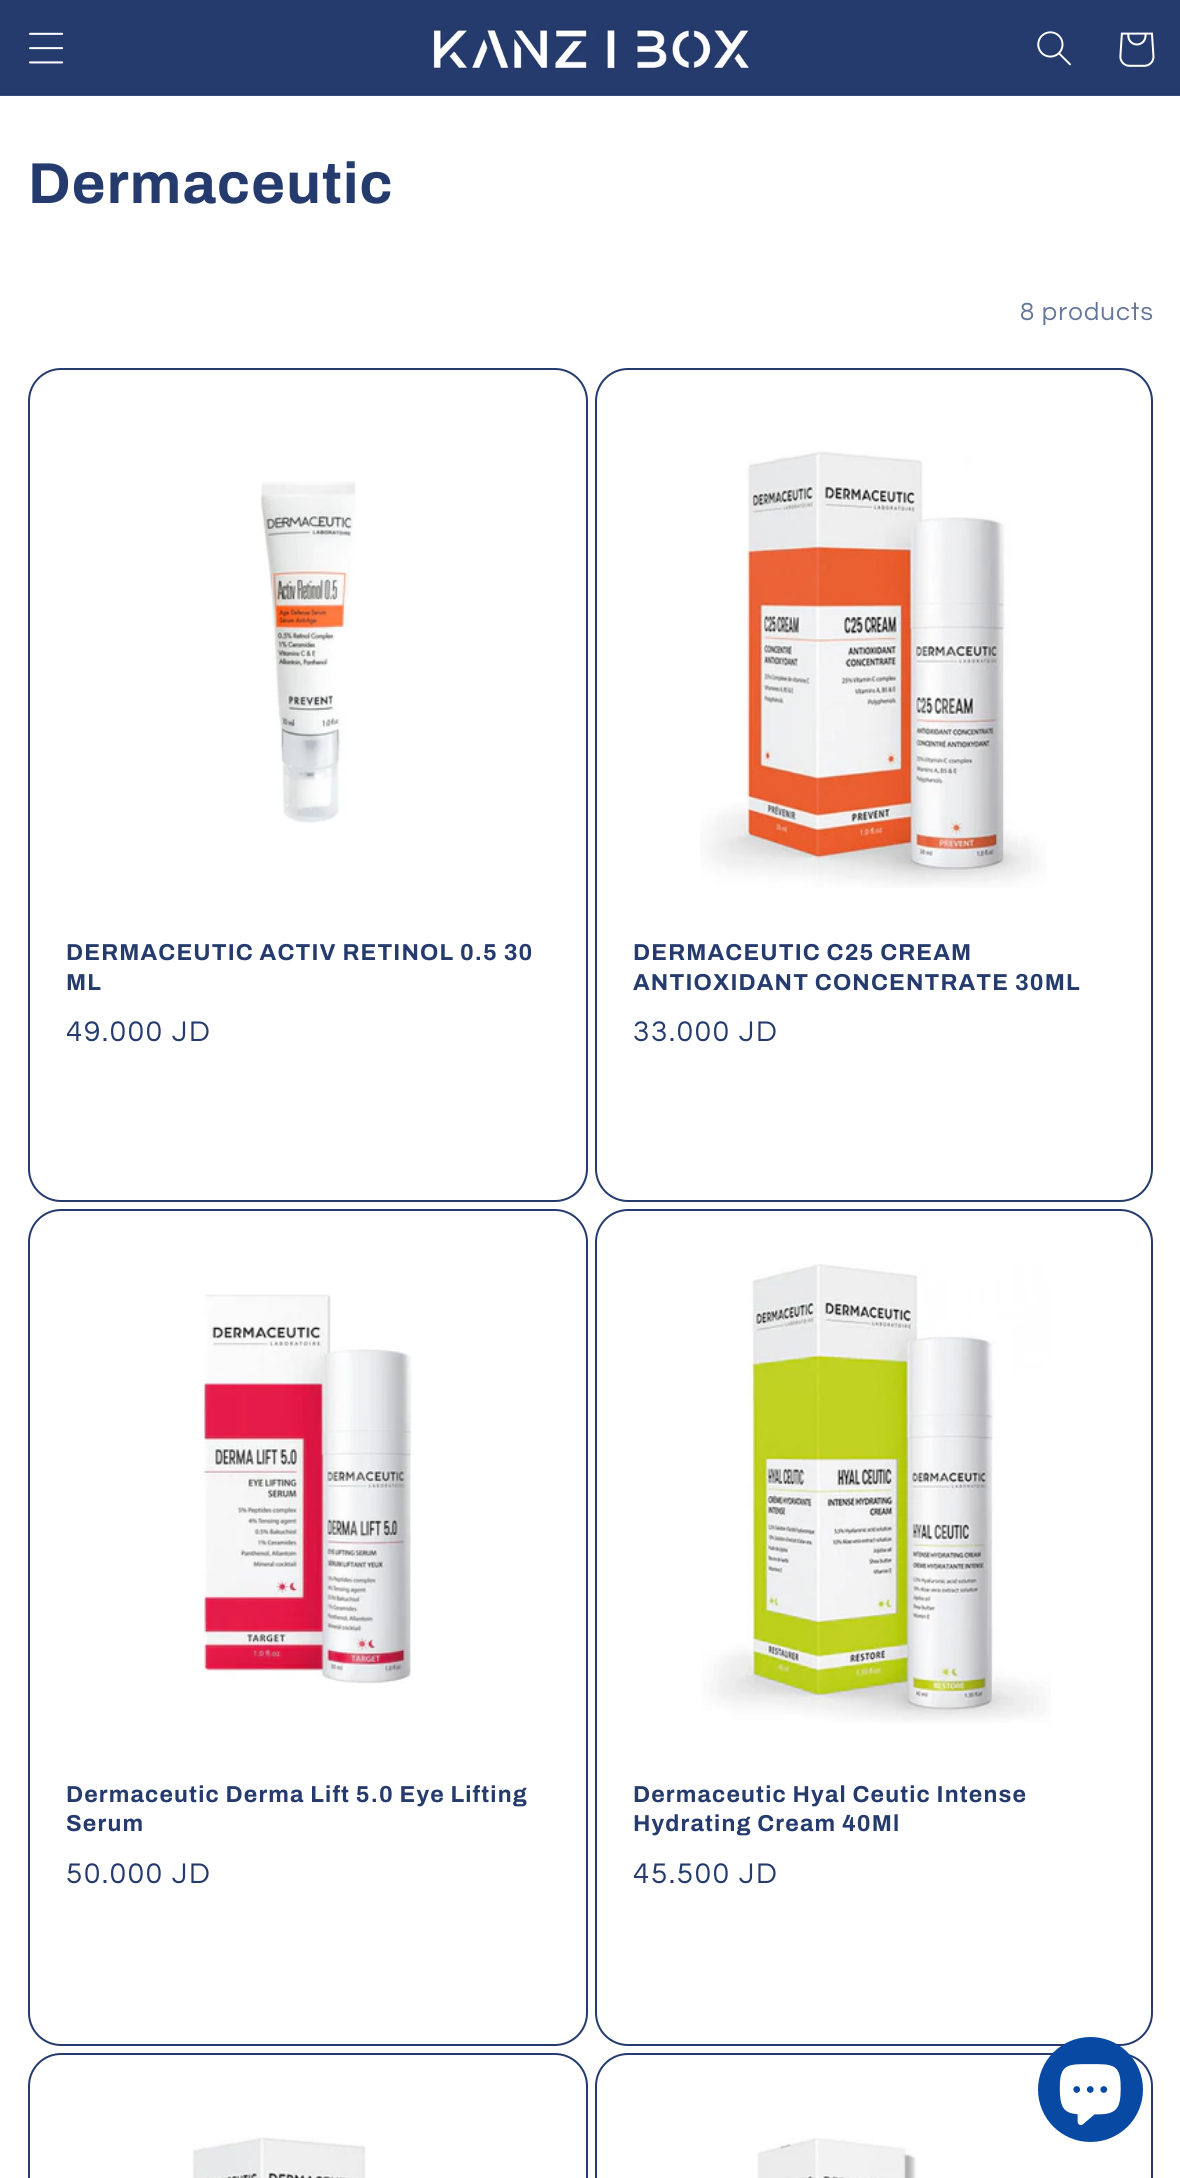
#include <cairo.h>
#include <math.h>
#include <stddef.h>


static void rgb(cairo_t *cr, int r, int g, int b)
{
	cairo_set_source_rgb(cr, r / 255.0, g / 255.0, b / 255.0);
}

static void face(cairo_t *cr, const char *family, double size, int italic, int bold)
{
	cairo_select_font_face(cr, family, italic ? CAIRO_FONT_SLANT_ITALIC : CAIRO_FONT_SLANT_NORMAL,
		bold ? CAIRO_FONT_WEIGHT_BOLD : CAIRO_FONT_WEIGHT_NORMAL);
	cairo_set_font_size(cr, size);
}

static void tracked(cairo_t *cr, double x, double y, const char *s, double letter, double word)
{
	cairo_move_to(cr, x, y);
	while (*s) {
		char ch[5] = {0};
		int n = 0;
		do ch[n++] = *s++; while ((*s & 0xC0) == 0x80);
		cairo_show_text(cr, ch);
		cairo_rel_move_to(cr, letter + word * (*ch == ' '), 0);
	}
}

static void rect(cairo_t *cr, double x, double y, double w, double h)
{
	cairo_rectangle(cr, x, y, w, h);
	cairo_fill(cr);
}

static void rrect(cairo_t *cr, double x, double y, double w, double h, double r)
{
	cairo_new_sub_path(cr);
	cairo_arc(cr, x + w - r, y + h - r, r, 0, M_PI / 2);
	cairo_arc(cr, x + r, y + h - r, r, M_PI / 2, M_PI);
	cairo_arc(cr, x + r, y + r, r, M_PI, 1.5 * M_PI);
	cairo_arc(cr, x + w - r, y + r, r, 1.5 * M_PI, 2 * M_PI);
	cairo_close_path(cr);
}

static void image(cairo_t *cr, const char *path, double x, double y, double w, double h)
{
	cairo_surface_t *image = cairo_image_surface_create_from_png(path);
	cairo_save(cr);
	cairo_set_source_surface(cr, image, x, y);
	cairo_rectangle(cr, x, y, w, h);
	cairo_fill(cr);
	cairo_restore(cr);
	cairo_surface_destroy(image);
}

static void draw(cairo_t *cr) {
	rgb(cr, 255, 255, 255);
	cairo_paint(cr);
	rgb(cr, 37, 59, 110);
	rect(cr, 0, 0, 1180, 95);
	rgb(cr, 54, 75, 122);
	rect(cr, 0, 95, 1180, 1);
	image(cr, "image0.png", 29, 32, 35, 32);
	image(cr, "image1.png", 433, 29, 319, 43);
	image(cr, "image2.png", 1037, 31, 34, 35);
	image(cr, "image3.png", 1119, 32, 36, 35);
	face(cr, "Archivo", 57.75, 0, 1);
	rgb(cr, 37, 59, 110);
	tracked(cr, 28, 203, "Dermaceutic", 1.15, 0);
	face(cr, "Questrial", 25.75, 0, 0);
	rgb(cr, 102, 118, 154);
	tracked(cr, 1020, 320, "8 products", 1.1, 0);
	rrect(cr, 29, 369, 558, 832, 32);
	rgb(cr, 37, 59, 110);
	cairo_stroke(cr);
	image(cr, "image4.png", 260, 481, 96, 342);
	face(cr, "Archivo", 23.1, 0, 1);
	tracked(cr, 66, 960, "DERMACEUTIC ACTIV RETINOL 0.5 30", 1.15, 0);
	tracked(cr, 66, 990, "ML", 1.15, 0);
	face(cr, "Questrial", 29.5, 0, 0);
	tracked(cr, 66, 1041, "49.000 JD", 1.75, 0);
	rrect(cr, 596, 369, 556, 832, 32);
	cairo_stroke(cr);
	image(cr, "image5.png", 700, 451, 347, 437);
	face(cr, "Archivo", 23.1, 0, 1);
	tracked(cr, 633, 960, "DERMACEUTIC C25 CREAM", 1.15, 0);
	tracked(cr, 633, 990, "ANTIOXIDANT CONCENTRATE 30ML", 1.15, 0);
	face(cr, "Questrial", 29.5, 0, 0);
	tracked(cr, 633, 1041, "33.000 JD", 1.75, 0);
	rrect(cr, 29, 1210, 558, 835, 32);
	cairo_stroke(cr);
	image(cr, "image6.png", 202, 1294, 210, 390);
	face(cr, "Archivo", 23.1, 0, 1);
	tracked(cr, 66, 1802, "Dermaceutic Derma Lift 5.0 Eye Lifting", 1.15, 0);
	tracked(cr, 66, 1831, "Serum", 1.15, 0);
	face(cr, "Questrial", 29.5, 0, 0);
	tracked(cr, 66, 1883, "50.000 JD", 1.75, 0);
	rrect(cr, 596, 1210, 556, 835, 32);
	cairo_stroke(cr);
	image(cr, "image7.png", 702, 1264, 349, 459);
	face(cr, "Archivo", 23.1, 0, 1);
	tracked(cr, 633, 1802, "Dermaceutic Hyal Ceutic Intense", 1.15, 0);
	tracked(cr, 633, 1831, "Hydrating Cream 40Ml", 1.15, 0);
	face(cr, "Questrial", 29.5, 0, 0);
	tracked(cr, 633, 1883, "45.500 JD", 1.75, 0);
	rrect(cr, 29, 2054, 558, 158, 32);
	cairo_stroke(cr);
	image(cr, "image8.png", 192, 2137, 174, 41);
	rrect(cr, 596, 2054, 556, 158, 32);
	cairo_stroke(cr);
	image(cr, "image9.png", 757, 2138, 159, 40);
	rgb(cr, 8, 73, 163);
	cairo_arc(cr, 1090.5, 2089.5, 52.5, 0, 2 * M_PI);
	cairo_fill(cr);
	image(cr, "image10.png", 1059, 2064, 62, 61);
}

int main(void) {
	cairo_surface_t *surface = cairo_image_surface_create(CAIRO_FORMAT_RGB24, 1180, 2178);
	cairo_t *cr = cairo_create(surface);
	cairo_font_options_t *options = cairo_font_options_create();
	cairo_font_options_set_hint_metrics(options, CAIRO_HINT_METRICS_OFF);
	cairo_font_options_set_hint_style(options, CAIRO_HINT_STYLE_NONE);
	cairo_set_font_options(cr, options);
	cairo_set_miter_limit(cr, 4);
	draw(cr);
	cairo_surface_write_to_png(surface, "render.png");
	cairo_font_options_destroy(options);
	cairo_destroy(cr);
	cairo_surface_destroy(surface);
	return 0;
}
